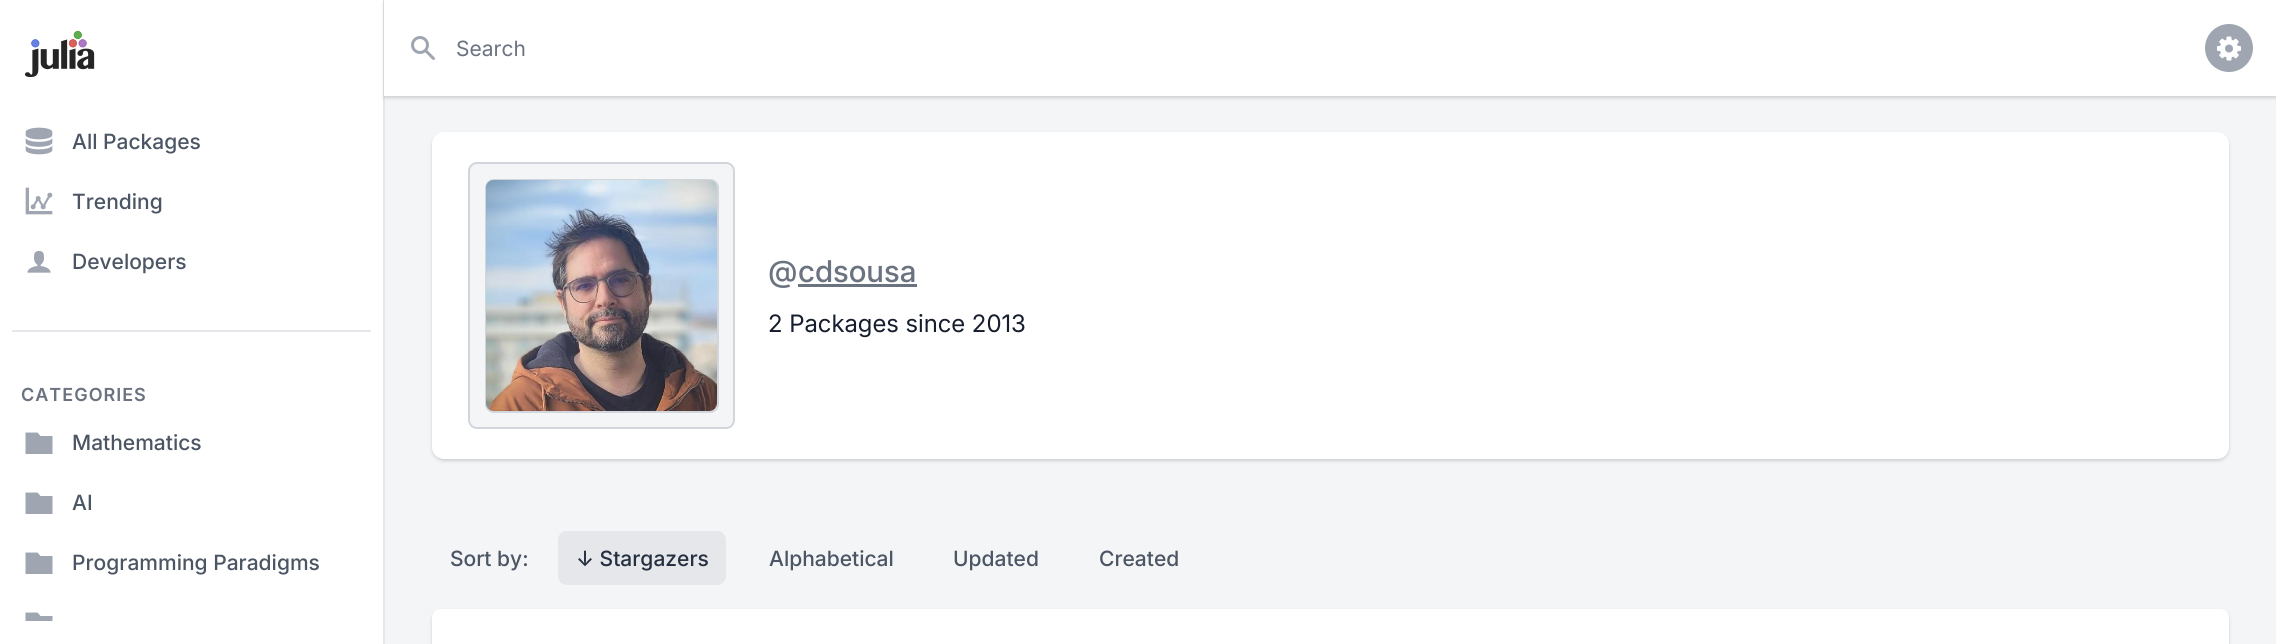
#include <cairo.h>
#include <math.h>
#include <stddef.h>


static void rgb(cairo_t *cr, int r, int g, int b)
{
	cairo_set_source_rgb(cr, r / 255.0, g / 255.0, b / 255.0);
}

static void face(cairo_t *cr, const char *family, double size, int italic, int bold)
{
	cairo_select_font_face(cr, family, italic ? CAIRO_FONT_SLANT_ITALIC : CAIRO_FONT_SLANT_NORMAL,
		bold ? CAIRO_FONT_WEIGHT_BOLD : CAIRO_FONT_WEIGHT_NORMAL);
	cairo_set_font_size(cr, size);
}

static void label(cairo_t *cr, double x, double y, const char *s)
{
	cairo_move_to(cr, x, y);
	cairo_show_text(cr, s);
}

static void tracked(cairo_t *cr, double x, double y, const char *s, double letter, double word)
{
	cairo_move_to(cr, x, y);
	while (*s) {
		char ch[5] = {0};
		int n = 0;
		do ch[n++] = *s++; while ((*s & 0xC0) == 0x80);
		cairo_show_text(cr, ch);
		cairo_rel_move_to(cr, letter + word * (*ch == ' '), 0);
	}
}

static void rect(cairo_t *cr, double x, double y, double w, double h)
{
	cairo_rectangle(cr, x, y, w, h);
	cairo_fill(cr);
}

static void rrect(cairo_t *cr, double x, double y, double w, double h, double r)
{
	cairo_new_sub_path(cr);
	cairo_arc(cr, x + w - r, y + h - r, r, 0, M_PI / 2);
	cairo_arc(cr, x + r, y + h - r, r, M_PI / 2, M_PI);
	cairo_arc(cr, x + r, y + r, r, M_PI, 1.5 * M_PI);
	cairo_arc(cr, x + w - r, y + r, r, 1.5 * M_PI, 2 * M_PI);
	cairo_close_path(cr);
}

static void soft_shadow(cairo_t *cr, double x, double y, double w, double h, double r, double blur, double alpha)
{
	cairo_push_group_with_content(cr, CAIRO_CONTENT_ALPHA);
	cairo_set_operator(cr, CAIRO_OPERATOR_SOURCE);
	for (int i = 15; i >= -15 && fmin(w, h) + blur * i / 3 > 0; i -= 2) {
		double e = blur * i / 6;
		cairo_set_source_rgba(cr, 0, 0, 0, alpha * erfc((i - 1) / 8.5) / 2);
		rrect(cr, x - e, y - e, w + 2 * e, h + 2 * e, fmax(0, fmin(r + e + blur * .6, fmin(w, h) / 2 + e)));
		cairo_fill(cr);
	}
	cairo_pattern_t *soft = cairo_pop_group(cr);
	cairo_mask(cr, soft);
	cairo_pattern_destroy(soft);
}

static void image(cairo_t *cr, const char *path, double x, double y, double w, double h)
{
	cairo_surface_t *image = cairo_image_surface_create_from_png(path);
	cairo_save(cr);
	cairo_set_source_surface(cr, image, x, y);
	cairo_rectangle(cr, x, y, w, h);
	cairo_fill(cr);
	cairo_restore(cr);
	cairo_surface_destroy(image);
}

static void draw(cairo_t *cr) {
	rgb(cr, 244, 245, 247);
	cairo_paint(cr);
	rgb(cr, 255, 255, 255);
	rect(cr, 0, 0, 383, 644);
	rgb(cr, 229, 231, 235);
	rect(cr, 383, 0, 2, 644);
	image(cr, "image0.png", 24, 30, 71, 48);
	image(cr, "image1.png", 25, 127, 28, 28);
	face(cr, "Inter Medium", 21, 0, 0);
	rgb(cr, 75, 85, 99);
	label(cr, 72, 149, "All Packages");
	image(cr, "image2.png", 25, 187, 28, 28);
	label(cr, 72, 209, "Trending");
	image(cr, "image3.png", 27, 251, 24, 22);
	label(cr, 72, 269, "Developers");
	rgb(cr, 229, 231, 235);
	rect(cr, 12, 330, 359, 2);
	face(cr, "Inter SemiBold", 18, 0, 0);
	rgb(cr, 107, 114, 128);
	tracked(cr, 21, 401, "CATEGORIES", 1, 0);
	rgb(cr, 159, 166, 178);
	cairo_new_path(cr);
	cairo_move_to(cr, 37.5, 432.5);
	cairo_line_to(cr, 40.5, 436);
	cairo_line_to(cr, 52.5, 436);
	cairo_line_to(cr, 52.5, 454);
	cairo_line_to(cr, 25.5, 454);
	cairo_line_to(cr, 25.5, 432.5);
	cairo_close_path(cr);
	cairo_fill(cr);
	face(cr, "Inter Medium", 21, 0, 0);
	rgb(cr, 75, 85, 99);
	label(cr, 72, 450, "Mathematics");
	rgb(cr, 159, 166, 178);
	cairo_new_path(cr);
	cairo_move_to(cr, 37.5, 492.5);
	cairo_line_to(cr, 40.5, 496);
	cairo_line_to(cr, 52.5, 496);
	cairo_line_to(cr, 52.5, 514);
	cairo_line_to(cr, 25.5, 514);
	cairo_line_to(cr, 25.5, 492.5);
	cairo_close_path(cr);
	cairo_fill(cr);
	rgb(cr, 75, 85, 99);
	label(cr, 72, 510, "AI");
	rgb(cr, 159, 166, 178);
	cairo_new_path(cr);
	cairo_move_to(cr, 37.5, 552.5);
	cairo_line_to(cr, 40.5, 556);
	cairo_line_to(cr, 52.5, 556);
	cairo_line_to(cr, 52.5, 574);
	cairo_line_to(cr, 25.5, 574);
	cairo_line_to(cr, 25.5, 552.5);
	cairo_close_path(cr);
	cairo_fill(cr);
	rgb(cr, 75, 85, 99);
	label(cr, 72, 570, "Programming Paradigms");
	cairo_save(cr);
	cairo_rectangle(cr, 24, 608, 30, 13);
	cairo_clip(cr);
	rgb(cr, 159, 166, 178);
	cairo_new_path(cr);
	cairo_move_to(cr, 37.5, 612.5);
	cairo_line_to(cr, 40.5, 616);
	cairo_line_to(cr, 52.5, 616);
	cairo_line_to(cr, 52.5, 634);
	cairo_line_to(cr, 25.5, 634);
	cairo_line_to(cr, 25.5, 612.5);
	cairo_close_path(cr);
	cairo_fill(cr);
	cairo_restore(cr);
	rgb(cr, 0, 0, 0);
	soft_shadow(cr, 384, 2, 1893, 96, 0, 1.5, 0.06);
	soft_shadow(cr, 384, 2, 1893, 96, 0, 2, 0.1);
	rgb(cr, 255, 255, 255);
	rect(cr, 384, 0, 1892, 96);
	image(cr, "image4.png", 411, 36, 24, 24);
	face(cr, "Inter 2", 21, 0, 0);
	rgb(cr, 107, 114, 128);
	label(cr, 456, 56, "Search");
	rgb(cr, 159, 166, 178);
	cairo_new_path(cr);
	cairo_arc(cr, 2229, 48, 24, 0, 2 * M_PI);
	cairo_fill(cr);
	image(cr, "image5.png", 2217, 36, 24, 25);
	rgb(cr, 0, 0, 0);
	soft_shadow(cr, 432, 134, 1797, 327, 12, 1.5, 0.06);
	soft_shadow(cr, 432, 134, 1797, 327, 12, 2, 0.1);
	rgb(cr, 255, 255, 255);
	rrect(cr, 432, 132, 1797, 327, 12);
	cairo_fill(cr);
	rgb(cr, 244, 245, 247);
	rrect(cr, 469, 163, 265, 265, 8);
	cairo_fill_preserve(cr);
	rgb(cr, 210, 214, 220);
	cairo_stroke(cr);
	rgb(cr, 255, 255, 255);
	rrect(cr, 486, 180, 232, 232, 8);
	cairo_fill_preserve(cr);
	rgb(cr, 210, 214, 220);
	cairo_stroke(cr);
	image(cr, "image6.png", 486, 180, 231, 231);
	face(cr, "Inter Medium", 30, 0, 0);
	rgb(cr, 107, 114, 128);
	label(cr, 768, 282, "@");
	rect(cr, 798, 284, 119, 3);
	face(cr, "Inter 2 Medium", 30, 0, 0);
	label(cr, 798, 282, "cdsousa");
	face(cr, "Inter", 24, 0, 0);
	rgb(cr, 22, 30, 46);
	label(cr, 768, 332, "2 Packages since 2013");
	face(cr, "Inter Medium", 21, 0, 0);
	rgb(cr, 75, 85, 99);
	label(cr, 450, 566, "Sort by:");
	rgb(cr, 229, 231, 235);
	rrect(cr, 558, 531, 168, 54, 9);
	cairo_fill(cr);
	rgb(cr, 37, 47, 63);
	label(cr, 576, 566, "↓ Stargazers");
	rgb(cr, 75, 85, 99);
	label(cr, 769, 566, "Alphabetical");
	label(cr, 953, 566, "Updated");
	label(cr, 1099, 566, "Created");
	rgb(cr, 0, 0, 0);
	soft_shadow(cr, 432, 611, 1797, 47, 9, 1.5, 0.06);
	soft_shadow(cr, 432, 611, 1797, 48, 9, 2, 0.1);
	rgb(cr, 255, 255, 255);
	cairo_new_path(cr);
	cairo_move_to(cr, 441, 609);
	cairo_line_to(cr, 2220, 609);
	cairo_curve_to(cr, 2225, 609, 2229, 613, 2229, 618);
	cairo_line_to(cr, 2229, 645);
	cairo_line_to(cr, 432, 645);
	cairo_line_to(cr, 432, 618);
	cairo_curve_to(cr, 432, 613, 436, 609, 441, 609);
	cairo_close_path(cr);
	cairo_fill(cr);
}

int main(void) {
	cairo_surface_t *surface = cairo_image_surface_create(CAIRO_FORMAT_RGB24, 2276, 644);
	cairo_t *cr = cairo_create(surface);
	cairo_font_options_t *options = cairo_font_options_create();
	cairo_font_options_set_hint_metrics(options, CAIRO_HINT_METRICS_OFF);
	cairo_font_options_set_hint_style(options, CAIRO_HINT_STYLE_NONE);
	cairo_set_font_options(cr, options);
	cairo_set_miter_limit(cr, 4);
	draw(cr);
	cairo_surface_write_to_png(surface, "render.png");
	cairo_font_options_destroy(options);
	cairo_destroy(cr);
	cairo_surface_destroy(surface);
	return 0;
}
